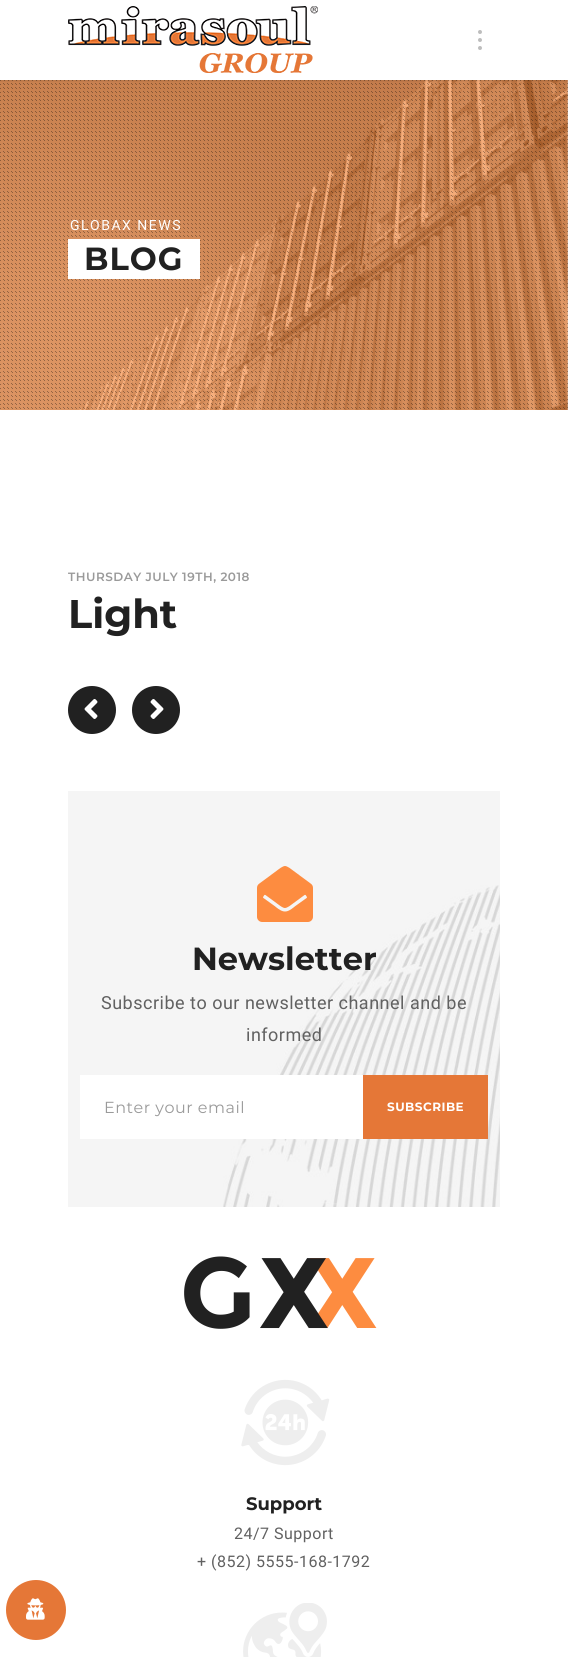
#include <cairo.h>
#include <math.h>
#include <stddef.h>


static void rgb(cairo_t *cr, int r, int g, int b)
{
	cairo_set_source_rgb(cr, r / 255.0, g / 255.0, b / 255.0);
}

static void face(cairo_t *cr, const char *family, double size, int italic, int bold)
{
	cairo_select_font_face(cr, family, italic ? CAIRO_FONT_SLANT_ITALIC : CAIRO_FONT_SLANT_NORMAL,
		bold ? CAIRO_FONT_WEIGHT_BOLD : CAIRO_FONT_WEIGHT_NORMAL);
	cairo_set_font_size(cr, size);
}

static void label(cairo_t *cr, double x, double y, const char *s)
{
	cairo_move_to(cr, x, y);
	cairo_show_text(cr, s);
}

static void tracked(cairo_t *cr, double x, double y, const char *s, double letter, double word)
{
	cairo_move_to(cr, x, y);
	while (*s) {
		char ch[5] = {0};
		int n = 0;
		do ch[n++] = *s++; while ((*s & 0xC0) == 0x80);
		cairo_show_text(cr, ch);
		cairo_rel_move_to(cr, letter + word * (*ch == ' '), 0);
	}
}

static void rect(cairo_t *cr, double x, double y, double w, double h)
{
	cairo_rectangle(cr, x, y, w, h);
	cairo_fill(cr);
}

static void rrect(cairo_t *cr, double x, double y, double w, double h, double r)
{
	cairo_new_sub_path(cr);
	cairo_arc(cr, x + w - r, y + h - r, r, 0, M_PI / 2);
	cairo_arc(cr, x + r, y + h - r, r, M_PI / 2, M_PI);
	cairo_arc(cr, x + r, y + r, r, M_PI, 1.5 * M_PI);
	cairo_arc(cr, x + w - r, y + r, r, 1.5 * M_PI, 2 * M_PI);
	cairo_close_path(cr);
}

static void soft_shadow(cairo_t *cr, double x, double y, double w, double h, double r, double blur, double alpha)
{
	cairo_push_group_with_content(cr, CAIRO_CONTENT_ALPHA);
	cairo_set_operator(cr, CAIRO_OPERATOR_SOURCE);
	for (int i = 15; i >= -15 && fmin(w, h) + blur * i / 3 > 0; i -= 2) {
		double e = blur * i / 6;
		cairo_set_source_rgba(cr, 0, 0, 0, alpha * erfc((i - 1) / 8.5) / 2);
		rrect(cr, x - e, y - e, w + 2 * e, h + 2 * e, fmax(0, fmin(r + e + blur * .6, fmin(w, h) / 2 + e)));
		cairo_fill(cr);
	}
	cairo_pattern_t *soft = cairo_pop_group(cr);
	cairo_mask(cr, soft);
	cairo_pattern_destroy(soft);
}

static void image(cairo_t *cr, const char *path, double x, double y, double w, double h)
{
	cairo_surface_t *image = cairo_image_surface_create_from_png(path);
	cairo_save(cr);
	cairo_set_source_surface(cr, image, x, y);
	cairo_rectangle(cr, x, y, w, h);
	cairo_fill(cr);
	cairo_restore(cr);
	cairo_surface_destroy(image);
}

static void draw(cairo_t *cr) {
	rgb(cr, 255, 255, 255);
	cairo_paint(cr);
	image(cr, "image1.png", 0, 80, 568, 330);
	image(cr, "image2.png", 0, 80, 568, 329);
	cairo_save(cr);
	cairo_rectangle(cr, 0, 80, 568, 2);
	cairo_clip(cr);
	rgb(cr, 0, 0, 0);
	soft_shadow(cr, 0, 1, 568, 80, 0, 1.5, 0.1);
	cairo_restore(cr);
	image(cr, "image0.png", 68, 6, 250, 67);
	rgb(cr, 189, 189, 189);
	cairo_arc(cr, 480, 40, 2, 0, 2 * M_PI);
	cairo_fill(cr);
	cairo_arc(cr, 480, 32, 2, 0, 2 * M_PI);
	cairo_fill(cr);
	cairo_arc(cr, 480, 48, 2, 0, 2 * M_PI);
	cairo_fill(cr);
	face(cr, "Roboto", 14, 0, 0);
	rgb(cr, 255, 255, 255);
	tracked(cr, 70, 230, "GLOBAX NEWS", 1.5, 0);
	rect(cr, 68, 239, 132, 40);
	face(cr, "Montserrat", 32, 0, 1);
	rgb(cr, 33, 33, 33);
	tracked(cr, 84, 270, "BLOG", 1, 0);
	face(cr, "Montserrat SemiBold", 12, 0, 0);
	rgb(cr, 154, 154, 154);
	tracked(cr, 68, 581, "THURSDAY JULY 19TH, 2018", 0.5, 0);
	face(cr, "Montserrat", 40, 0, 1);
	rgb(cr, 33, 33, 33);
	label(cr, 68, 628, "Light");
	cairo_new_path(cr);
	cairo_arc(cr, 92, 710, 24, 0, 2 * M_PI);
	cairo_fill(cr);
	image(cr, "image3.png", 84, 699, 14, 20);
	cairo_arc(cr, 156, 710, 24, 0, 2 * M_PI);
	cairo_fill(cr);
	image(cr, "image4.png", 150, 699, 14, 20);
	rgb(cr, 245, 245, 245);
	rect(cr, 68, 791, 432, 416);
	image(cr, "image5.png", 223, 885, 277, 322);
	image(cr, "image6.png", 257, 866, 56, 56);
	face(cr, "Montserrat", 32, 0, 1);
	rgb(cr, 33, 33, 33);
	label(cr, 192, 970, "Newsletter");
	face(cr, "Roboto", 18, 0, 0);
	rgb(cr, 97, 97, 97);
	tracked(cr, 101, 1009, "Subscribe to our newsletter channel and be", 0.5, 0);
	tracked(cr, 246, 1041, "informed", 0.5, 0);
	rgb(cr, 255, 255, 255);
	rect(cr, 80, 1075, 283, 64);
	face(cr, "Montserrat", 16, 0, 0);
	rgb(cr, 154, 154, 154);
	tracked(cr, 104, 1113, "Enter your email", 0.5, 0);
	rgb(cr, 229, 119, 55);
	rect(cr, 363, 1075, 125, 64);
	face(cr, "Montserrat", 12, 0, 1);
	rgb(cr, 255, 255, 255);
	tracked(cr, 387, 1111, "SUBSCRIBE", 0.5, 0);
	image(cr, "image7.png", 184, 1256, 193, 73);
	face(cr, "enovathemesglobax", 88, 0, 0);
	rgb(cr, 238, 238, 238);
	tracked(cr, 241, 1461, "꤅", 0.5, 0);
	face(cr, "Montserrat", 18, 0, 1);
	rgb(cr, 33, 33, 33);
	label(cr, 246, 1510, "Support");
	face(cr, "Roboto", 16, 0, 0);
	rgb(cr, 97, 97, 97);
	tracked(cr, 234, 1539, "24/7 Support", 0.5, 0);
	tracked(cr, 197, 1567, "+ (852) 5555-168-1792", 0.5, 0);
	image(cr, "image8.png", 243, 1603, 84, 54);
	rgb(cr, 229, 119, 55);
	cairo_arc(cr, 36, 1610, 30, 0, 2 * M_PI);
	cairo_fill(cr);
	image(cr, "image9.png", 26, 1598, 19, 22);
}

int main(void) {
	cairo_surface_t *surface = cairo_image_surface_create(CAIRO_FORMAT_RGB24, 568, 1657);
	cairo_t *cr = cairo_create(surface);
	cairo_font_options_t *options = cairo_font_options_create();
	cairo_font_options_set_hint_metrics(options, CAIRO_HINT_METRICS_OFF);
	cairo_font_options_set_hint_style(options, CAIRO_HINT_STYLE_NONE);
	cairo_set_font_options(cr, options);
	cairo_set_miter_limit(cr, 4);
	draw(cr);
	cairo_surface_write_to_png(surface, "render.png");
	cairo_font_options_destroy(options);
	cairo_destroy(cr);
	cairo_surface_destroy(surface);
	return 0;
}
